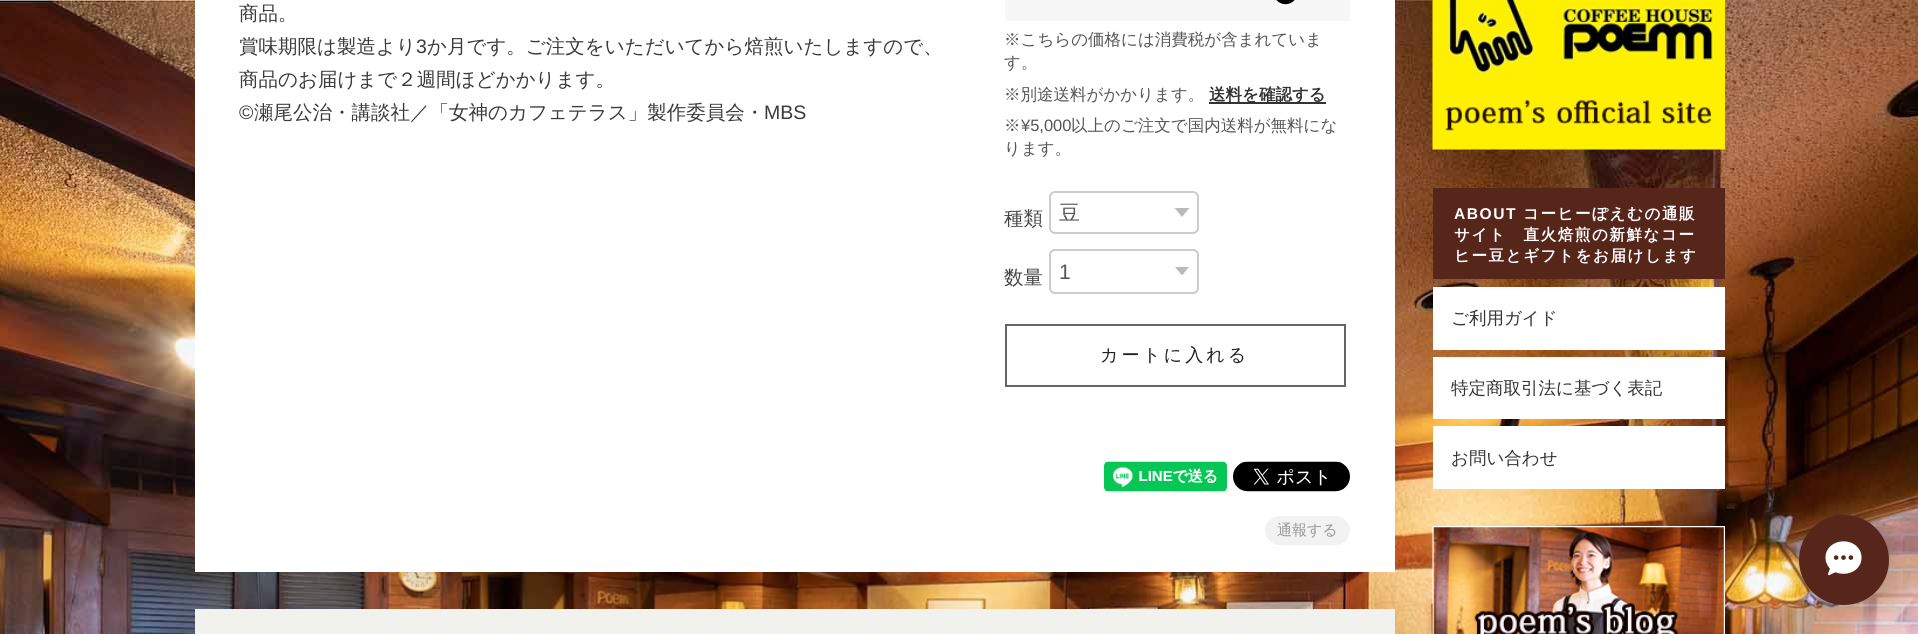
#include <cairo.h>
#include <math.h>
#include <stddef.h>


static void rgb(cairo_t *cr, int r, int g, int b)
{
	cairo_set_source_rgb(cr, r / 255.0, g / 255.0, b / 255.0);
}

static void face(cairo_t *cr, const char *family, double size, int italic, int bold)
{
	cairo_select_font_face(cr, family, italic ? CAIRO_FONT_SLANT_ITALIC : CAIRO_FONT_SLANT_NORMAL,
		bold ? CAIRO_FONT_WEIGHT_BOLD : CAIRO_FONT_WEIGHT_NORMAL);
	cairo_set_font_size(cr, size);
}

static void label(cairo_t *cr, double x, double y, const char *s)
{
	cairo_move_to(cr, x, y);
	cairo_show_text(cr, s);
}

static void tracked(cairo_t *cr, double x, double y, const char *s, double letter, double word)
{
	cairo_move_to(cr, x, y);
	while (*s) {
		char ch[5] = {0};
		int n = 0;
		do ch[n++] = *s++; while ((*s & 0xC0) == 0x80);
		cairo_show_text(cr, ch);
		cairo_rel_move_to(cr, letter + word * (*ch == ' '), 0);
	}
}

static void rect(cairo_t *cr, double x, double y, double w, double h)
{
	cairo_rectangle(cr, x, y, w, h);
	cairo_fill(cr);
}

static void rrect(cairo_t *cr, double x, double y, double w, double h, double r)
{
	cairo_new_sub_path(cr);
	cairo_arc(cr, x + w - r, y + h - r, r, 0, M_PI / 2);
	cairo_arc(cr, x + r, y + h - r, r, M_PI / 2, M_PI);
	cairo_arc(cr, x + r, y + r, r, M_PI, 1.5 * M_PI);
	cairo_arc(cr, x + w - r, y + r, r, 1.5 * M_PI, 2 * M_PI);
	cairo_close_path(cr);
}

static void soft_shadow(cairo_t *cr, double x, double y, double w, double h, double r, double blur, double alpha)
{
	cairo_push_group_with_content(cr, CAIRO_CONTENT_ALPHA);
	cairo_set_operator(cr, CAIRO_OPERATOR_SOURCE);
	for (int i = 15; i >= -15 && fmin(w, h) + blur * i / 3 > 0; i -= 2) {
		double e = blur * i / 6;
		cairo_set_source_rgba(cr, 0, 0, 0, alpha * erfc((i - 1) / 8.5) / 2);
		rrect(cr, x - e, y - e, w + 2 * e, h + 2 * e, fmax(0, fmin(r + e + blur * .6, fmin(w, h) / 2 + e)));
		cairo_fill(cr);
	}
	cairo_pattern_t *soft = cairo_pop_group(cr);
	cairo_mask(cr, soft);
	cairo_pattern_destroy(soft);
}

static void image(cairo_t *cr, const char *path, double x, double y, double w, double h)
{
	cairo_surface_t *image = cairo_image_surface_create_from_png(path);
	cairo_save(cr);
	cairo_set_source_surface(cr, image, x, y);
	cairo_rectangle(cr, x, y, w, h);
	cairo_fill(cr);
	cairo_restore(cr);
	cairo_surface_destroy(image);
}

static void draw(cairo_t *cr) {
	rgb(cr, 255, 255, 255);
	cairo_paint(cr);
	image(cr, "image0.png", 0, 0, 1918, 634);
	rgb(cr, 255, 255, 255);
	rect(cr, 195, 0, 1200, 572);
	face(cr, "WenQuanYi Zen Hei Medium", 19.5, 0, 0);
	rgb(cr, 58, 58, 58);
	label(cr, 239, 20, "商品。");
	label(cr, 239, 53, "賞味期限は製造より");
	face(cr, "Liberation Sans", 19.5, 0, 0);
	label(cr, 416, 53, "3");
	face(cr, "WenQuanYi Zen Hei Medium", 19.5, 0, 0);
	label(cr, 427, 53, "か月です。ご注文をいただいてから焙煎いたしますので、");
	label(cr, 239, 86, "商品のお届けまで２週間ほどかかります。");
	face(cr, "Liberation Sans", 19.5, 0, 0);
	label(cr, 239, 119, "©");
	face(cr, "WenQuanYi Zen Hei Medium", 19.5, 0, 0);
	label(cr, 254, 119, "瀬尾公治・講談社／「女神のカフェテラス」製作委員会・");
	face(cr, "Liberation Sans", 19.5, 0, 0);
	label(cr, 764, 119, "MBS");
	rgb(cr, 247, 247, 247);
	rect(cr, 1005, 0, 345, 21);
	image(cr, "image1.png", 1276, 0, 19, 5);
	face(cr, "WenQuanYi Zen Hei Medium", 16.5, 0, 0);
	rgb(cr, 85, 85, 85);
	label(cr, 1004, 45, "※こちらの価格には消費税が含まれていま");
	label(cr, 1004, 68, "す。");
	label(cr, 1004, 100, "※別途送料がかかります。");
	rgb(cr, 51, 51, 51);
	rect(cr, 1209, 102, 117, 2);
	face(cr, "WenQuanYi Zen Hei", 16.5, 0, 1);
	label(cr, 1209, 100, "送料を確認する");
	face(cr, "WenQuanYi Zen Hei Medium", 16.5, 0, 0);
	rgb(cr, 85, 85, 85);
	label(cr, 1004, 131, "※");
	face(cr, "Liberation Sans", 16.5, 0, 0);
	label(cr, 1021, 131, "¥5,000");
	face(cr, "WenQuanYi Zen Hei Medium", 16.5, 0, 0);
	label(cr, 1071, 131, "以上のご注文で国内送料が無料にな");
	label(cr, 1004, 154, "ります。");
	face(cr, "WenQuanYi Zen Hei Medium", 19.5, 0, 0);
	rgb(cr, 70, 69, 69);
	label(cr, 1004, 225, "種類");
	image(cr, "image2.png", 1175, 208, 15, 9);
	rrect(cr, 1050, 192, 148, 41, 5);
	rgb(cr, 204, 204, 204);
	cairo_stroke(cr);
	face(cr, "WenQuanYi Zen Hei Medium", 21, 0, 0);
	rgb(cr, 85, 85, 85);
	label(cr, 1059, 220, "豆");
	face(cr, "WenQuanYi Zen Hei Medium", 19.5, 0, 0);
	rgb(cr, 70, 69, 69);
	label(cr, 1004, 284, "数量");
	image(cr, "image3.png", 1175, 267, 14, 8);
	rrect(cr, 1050, 250, 148, 43, 5);
	rgb(cr, 204, 204, 204);
	cairo_stroke(cr);
	face(cr, "Liberation Sans", 21, 0, 0);
	rgb(cr, 85, 85, 85);
	label(cr, 1059, 279, "1");
	cairo_rectangle(cr, 1006, 325, 339, 61);
	rgb(cr, 102, 102, 102);
	cairo_stroke(cr);
	face(cr, "WenQuanYi Zen Hei Medium", 18, 0, 0);
	rgb(cr, 34, 34, 34);
	tracked(cr, 1100, 361, "カートに入れる", 3, 0);
	image(cr, "image4.png", 1104, 461, 123, 31);
	image(cr, "image5.png", 1233, 461, 117, 31);
	rgb(cr, 242, 242, 242);
	rrect(cr, 1265, 516, 85, 29, 14.5);
	cairo_fill(cr);
	face(cr, "WenQuanYi Zen Hei Medium", 15, 0, 0);
	rgb(cr, 152, 152, 152);
	label(cr, 1277, 535, "通報する");
	rgb(cr, 241, 241, 238);
	rect(cr, 195, 609, 1200, 25);
	image(cr, "image6.png", 1432, 0, 293, 150);
	rgb(cr, 87, 38, 26);
	rect(cr, 1433, 188, 292, 91);
	face(cr, "Liberation Sans", 15.6, 0, 1);
	rgb(cr, 255, 255, 255);
	tracked(cr, 1454, 219, "ABOUT", 1.5, 0);
	face(cr, "WenQuanYi Zen Hei", 15.6, 0, 1);
	tracked(cr, 1523, 219, "コーヒーぽえむの通販", 1.5, 0);
	tracked(cr, 1454, 240, "サイト　直火焙煎の新鮮なコー", 1.5, 0);
	tracked(cr, 1454, 261, "ヒー豆とギフトをお届けします", 1.5, 0);
	rect(cr, 1433, 287, 292, 63);
	face(cr, "WenQuanYi Zen Hei Medium", 17.5, 0, 0);
	rgb(cr, 51, 51, 51);
	label(cr, 1451, 324, "ご利用ガイド");
	rgb(cr, 255, 255, 255);
	rect(cr, 1433, 357, 292, 62);
	rgb(cr, 51, 51, 51);
	label(cr, 1451, 394, "特定商取引法に基づく表記");
	rgb(cr, 255, 255, 255);
	rect(cr, 1433, 426, 292, 63);
	rgb(cr, 51, 51, 51);
	label(cr, 1451, 464, "お問い合わせ");
	image(cr, "image7.png", 1432, 526, 293, 108);
	rgb(cr, 51, 66, 88);
	soft_shadow(cr, 1799, 515, 90, 90, 45, 11, 0.2);
	rgb(cr, 87, 38, 26);
	cairo_arc(cr, 1844, 560, 45, 0, 2 * M_PI);
	cairo_fill(cr);
	image(cr, "image8.png", 1825, 541, 37, 35);
}

int main(void) {
	cairo_surface_t *surface = cairo_image_surface_create(CAIRO_FORMAT_RGB24, 1918, 634);
	cairo_t *cr = cairo_create(surface);
	cairo_font_options_t *options = cairo_font_options_create();
	cairo_font_options_set_hint_metrics(options, CAIRO_HINT_METRICS_OFF);
	cairo_font_options_set_hint_style(options, CAIRO_HINT_STYLE_NONE);
	cairo_set_font_options(cr, options);
	cairo_set_miter_limit(cr, 4);
	draw(cr);
	cairo_surface_write_to_png(surface, "render.png");
	cairo_font_options_destroy(options);
	cairo_destroy(cr);
	cairo_surface_destroy(surface);
	return 0;
}
